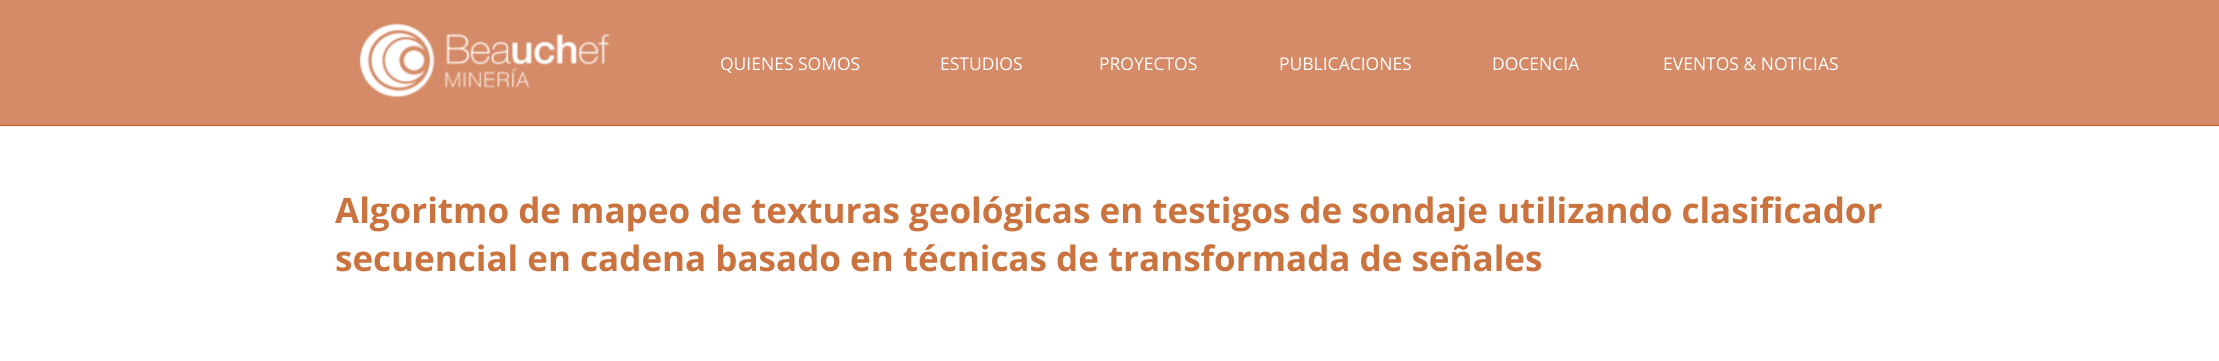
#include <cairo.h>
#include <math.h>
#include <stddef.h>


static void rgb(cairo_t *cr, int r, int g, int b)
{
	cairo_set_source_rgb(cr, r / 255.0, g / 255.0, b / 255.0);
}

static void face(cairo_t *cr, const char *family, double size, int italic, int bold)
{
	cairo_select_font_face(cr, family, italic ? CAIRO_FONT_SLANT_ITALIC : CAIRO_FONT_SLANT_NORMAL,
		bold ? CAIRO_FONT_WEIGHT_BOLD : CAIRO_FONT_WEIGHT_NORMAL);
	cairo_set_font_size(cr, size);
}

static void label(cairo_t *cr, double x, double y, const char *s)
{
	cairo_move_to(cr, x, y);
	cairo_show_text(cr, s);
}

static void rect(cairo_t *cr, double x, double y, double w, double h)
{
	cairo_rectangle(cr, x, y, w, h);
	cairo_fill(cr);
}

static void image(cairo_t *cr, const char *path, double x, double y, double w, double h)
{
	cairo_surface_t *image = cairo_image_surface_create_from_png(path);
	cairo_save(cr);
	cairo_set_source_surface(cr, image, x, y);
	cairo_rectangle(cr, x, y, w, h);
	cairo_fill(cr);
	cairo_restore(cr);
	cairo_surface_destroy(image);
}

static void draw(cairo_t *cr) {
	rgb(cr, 255, 255, 255);
	cairo_paint(cr);
	rgb(cr, 213, 139, 103);
	rect(cr, 0, 0, 2219, 125);
	rgb(cr, 195, 89, 38);
	rect(cr, 0, 125, 2219, 1);
	image(cr, "image0.png", 359, 23, 251, 75);
	face(cr, "Open Sans", 17.5, 0, 0);
	rgb(cr, 255, 255, 255);
	label(cr, 720, 70, "QUIENES SOMOS");
	label(cr, 940, 70, "ESTUDIOS");
	label(cr, 1099, 70, "PROYECTOS");
	label(cr, 1279, 70, "PUBLICACIONES");
	label(cr, 1492, 70, "DOCENCIA");
	label(cr, 1663, 70, "EVENTOS & NOTICIAS");
	face(cr, "Open Sans", 35, 0, 1);
	rgb(cr, 203, 115, 62);
	label(cr, 335, 223, "Algoritmo de mapeo de texturas geológicas en testigos de sondaje utilizando clasificador");
	label(cr, 335, 271, "secuencial en cadena basado en técnicas de transformada de señales");
}

int main(void) {
	cairo_surface_t *surface = cairo_image_surface_create(CAIRO_FORMAT_RGB24, 2219, 361);
	cairo_t *cr = cairo_create(surface);
	cairo_font_options_t *options = cairo_font_options_create();
	cairo_font_options_set_hint_metrics(options, CAIRO_HINT_METRICS_OFF);
	cairo_font_options_set_hint_style(options, CAIRO_HINT_STYLE_NONE);
	cairo_set_font_options(cr, options);
	cairo_set_miter_limit(cr, 4);
	draw(cr);
	cairo_surface_write_to_png(surface, "render.png");
	cairo_font_options_destroy(options);
	cairo_destroy(cr);
	cairo_surface_destroy(surface);
	return 0;
}
